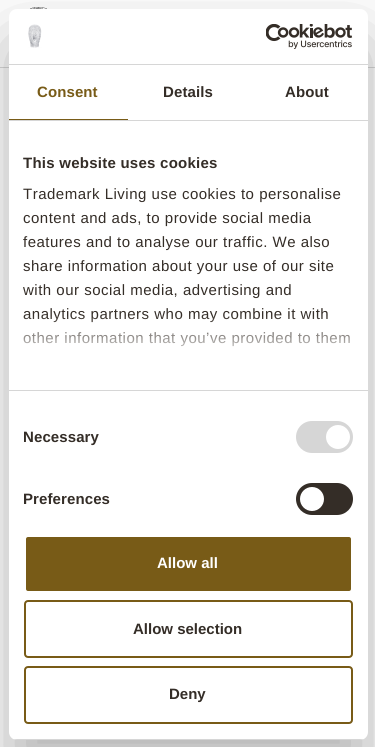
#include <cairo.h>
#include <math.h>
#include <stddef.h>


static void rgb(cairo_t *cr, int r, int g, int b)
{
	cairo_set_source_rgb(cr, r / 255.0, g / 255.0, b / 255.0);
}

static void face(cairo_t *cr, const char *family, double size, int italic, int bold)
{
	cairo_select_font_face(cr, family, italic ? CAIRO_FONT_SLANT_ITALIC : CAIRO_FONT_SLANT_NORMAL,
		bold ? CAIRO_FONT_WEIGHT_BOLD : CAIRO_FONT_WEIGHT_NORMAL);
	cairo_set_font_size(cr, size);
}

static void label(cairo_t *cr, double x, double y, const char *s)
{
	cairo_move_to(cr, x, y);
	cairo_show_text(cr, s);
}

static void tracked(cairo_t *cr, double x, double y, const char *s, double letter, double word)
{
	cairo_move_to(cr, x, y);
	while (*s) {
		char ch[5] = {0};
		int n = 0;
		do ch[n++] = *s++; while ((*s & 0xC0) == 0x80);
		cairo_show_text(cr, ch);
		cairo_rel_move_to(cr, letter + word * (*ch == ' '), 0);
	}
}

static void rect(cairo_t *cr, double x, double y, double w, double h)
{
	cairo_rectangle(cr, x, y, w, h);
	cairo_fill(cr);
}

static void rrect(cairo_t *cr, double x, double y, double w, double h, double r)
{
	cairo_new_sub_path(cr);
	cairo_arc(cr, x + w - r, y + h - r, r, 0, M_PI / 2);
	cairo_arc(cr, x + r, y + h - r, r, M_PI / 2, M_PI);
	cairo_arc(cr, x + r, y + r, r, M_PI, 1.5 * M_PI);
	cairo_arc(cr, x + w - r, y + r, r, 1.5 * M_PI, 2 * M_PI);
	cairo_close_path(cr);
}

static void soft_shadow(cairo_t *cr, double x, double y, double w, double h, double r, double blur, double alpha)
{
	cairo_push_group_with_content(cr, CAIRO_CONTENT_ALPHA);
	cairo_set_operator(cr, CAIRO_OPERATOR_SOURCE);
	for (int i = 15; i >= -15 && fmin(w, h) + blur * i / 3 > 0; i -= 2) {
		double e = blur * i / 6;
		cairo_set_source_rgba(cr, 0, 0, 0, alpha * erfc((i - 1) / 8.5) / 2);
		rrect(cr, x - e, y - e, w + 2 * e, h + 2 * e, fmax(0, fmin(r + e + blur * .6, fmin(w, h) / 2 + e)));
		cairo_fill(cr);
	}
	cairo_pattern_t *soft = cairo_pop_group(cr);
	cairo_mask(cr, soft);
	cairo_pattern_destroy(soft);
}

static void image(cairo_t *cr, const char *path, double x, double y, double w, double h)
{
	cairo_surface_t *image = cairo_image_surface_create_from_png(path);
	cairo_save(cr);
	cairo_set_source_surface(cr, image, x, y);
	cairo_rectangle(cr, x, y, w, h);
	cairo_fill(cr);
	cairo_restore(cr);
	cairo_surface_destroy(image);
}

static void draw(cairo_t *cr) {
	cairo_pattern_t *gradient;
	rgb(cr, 255, 255, 255);
	cairo_paint(cr);
	rgb(cr, 217, 217, 217);
	rect(cr, 0, 67, 375, 1);
	image(cr, "image0.png", 30, 7, 17, 2);
	rgb(cr, 0, 0, 0);
	soft_shadow(cr, 9, 41, 359, 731, 8, 34, 0.3);
	rgb(cr, 255, 255, 255);
	rrect(cr, 9, 9, 359, 731, 8);
	cairo_fill(cr);
	rgb(cr, 214, 214, 214);
	rect(cr, 9, 64, 359, 1);
	image(cr, "image1.png", 28, 24, 14, 24);
	image(cr, "image2.png", 266, 24, 87, 25);
	rect(cr, 9, 120, 359, 1);
	rgb(cr, 120, 91, 23);
	rect(cr, 9, 119, 119, 1);
	face(cr, "Liberation Sans", 15, 0, 1);
	tracked(cr, 37, 97, "Consent", 0.1, 0);
	rgb(cr, 52, 45, 39);
	tracked(cr, 163, 97, "Details", 0.1, 0);
	tracked(cr, 285, 97, "About", 0.1, 0);
	rgb(cr, 214, 214, 214);
	rect(cr, 9, 390, 359, 1);
	rgb(cr, 52, 45, 39);
	tracked(cr, 23, 168, "This website uses cookies", 0.25, 0);
	face(cr, "Liberation Sans", 15, 0, 0);
	tracked(cr, 23, 199, "Trademark Living use cookies to personalise", 0.5, 0);
	tracked(cr, 23, 223, "content and ads, to provide social media", 0.5, 0);
	tracked(cr, 23, 247, "features and to analyse our traffic. We also", 0.5, 0);
	tracked(cr, 23, 271, "share information about your use of our site", 0.5, 0);
	tracked(cr, 23, 295, "with our social media, advertising and", 0.5, 0);
	tracked(cr, 23, 319, "analytics partners who may combine it with", 0.5, 0);
	tracked(cr, 23, 343, "other information that you’ve provided to them", 0.5, 0);
	gradient = cairo_pattern_create_linear(182, 390, 182, 315);
	cairo_pattern_add_color_stop_rgba(gradient, 0, 1, 1, 1, 1);
	cairo_pattern_add_color_stop_rgba(gradient, 0.5, 1, 1, 1, 0.8);
	cairo_pattern_add_color_stop_rgba(gradient, 1, 1, 1, 1, 0);
	cairo_set_source(cr, gradient);
	cairo_pattern_destroy(gradient);
	rect(cr, 23, 316, 327, 31);
	face(cr, "Liberation Sans", 15, 0, 1);
	rgb(cr, 52, 45, 39);
	tracked(cr, 23, 442, "Necessary", 0.1, 0);
	rgb(cr, 214, 214, 214);
	rrect(cr, 296, 421, 57, 32, 16);
	cairo_fill(cr);
	rgb(cr, 255, 255, 255);
	cairo_arc(cr, 338, 437, 12, 0, 2 * M_PI);
	cairo_fill(cr);
	rgb(cr, 52, 45, 39);
	tracked(cr, 23, 504, "Preferences", 0.1, 0);
	rrect(cr, 296, 483, 57, 32, 16);
	cairo_fill(cr);
	rgb(cr, 255, 255, 255);
	cairo_arc(cr, 312, 499, 12, 0, 2 * M_PI);
	cairo_fill(cr);
	cairo_save(cr);
	rrect(cr, 9, 9, 359, 731, 8);
	cairo_clip(cr);
	rgb(cr, 214, 214, 214);
	rect(cr, 9, 739, 359, 1);
	cairo_restore(cr);
	rgb(cr, 120, 91, 23);
	rrect(cr, 25, 536, 327, 56, 3);
	cairo_fill_preserve(cr);
	rgb(cr, 255, 255, 255);
	cairo_stroke(cr);
	label(cr, 157, 568, "Allow all");
	rrect(cr, 25, 601, 327, 56, 3);
	rgb(cr, 120, 91, 23);
	cairo_stroke(cr);
	rgb(cr, 52, 45, 39);
	label(cr, 133, 634, "Allow selection");
	rrect(cr, 25, 667, 327, 56, 3);
	rgb(cr, 120, 91, 23);
	cairo_stroke(cr);
	rgb(cr, 52, 45, 39);
	label(cr, 169, 699, "Deny");
}

int main(void) {
	cairo_surface_t *surface = cairo_image_surface_create(CAIRO_FORMAT_RGB24, 375, 747);
	cairo_t *cr = cairo_create(surface);
	cairo_font_options_t *options = cairo_font_options_create();
	cairo_font_options_set_hint_metrics(options, CAIRO_HINT_METRICS_OFF);
	cairo_font_options_set_hint_style(options, CAIRO_HINT_STYLE_NONE);
	cairo_set_font_options(cr, options);
	cairo_set_miter_limit(cr, 4);
	draw(cr);
	cairo_surface_write_to_png(surface, "render.png");
	cairo_font_options_destroy(options);
	cairo_destroy(cr);
	cairo_surface_destroy(surface);
	return 0;
}
